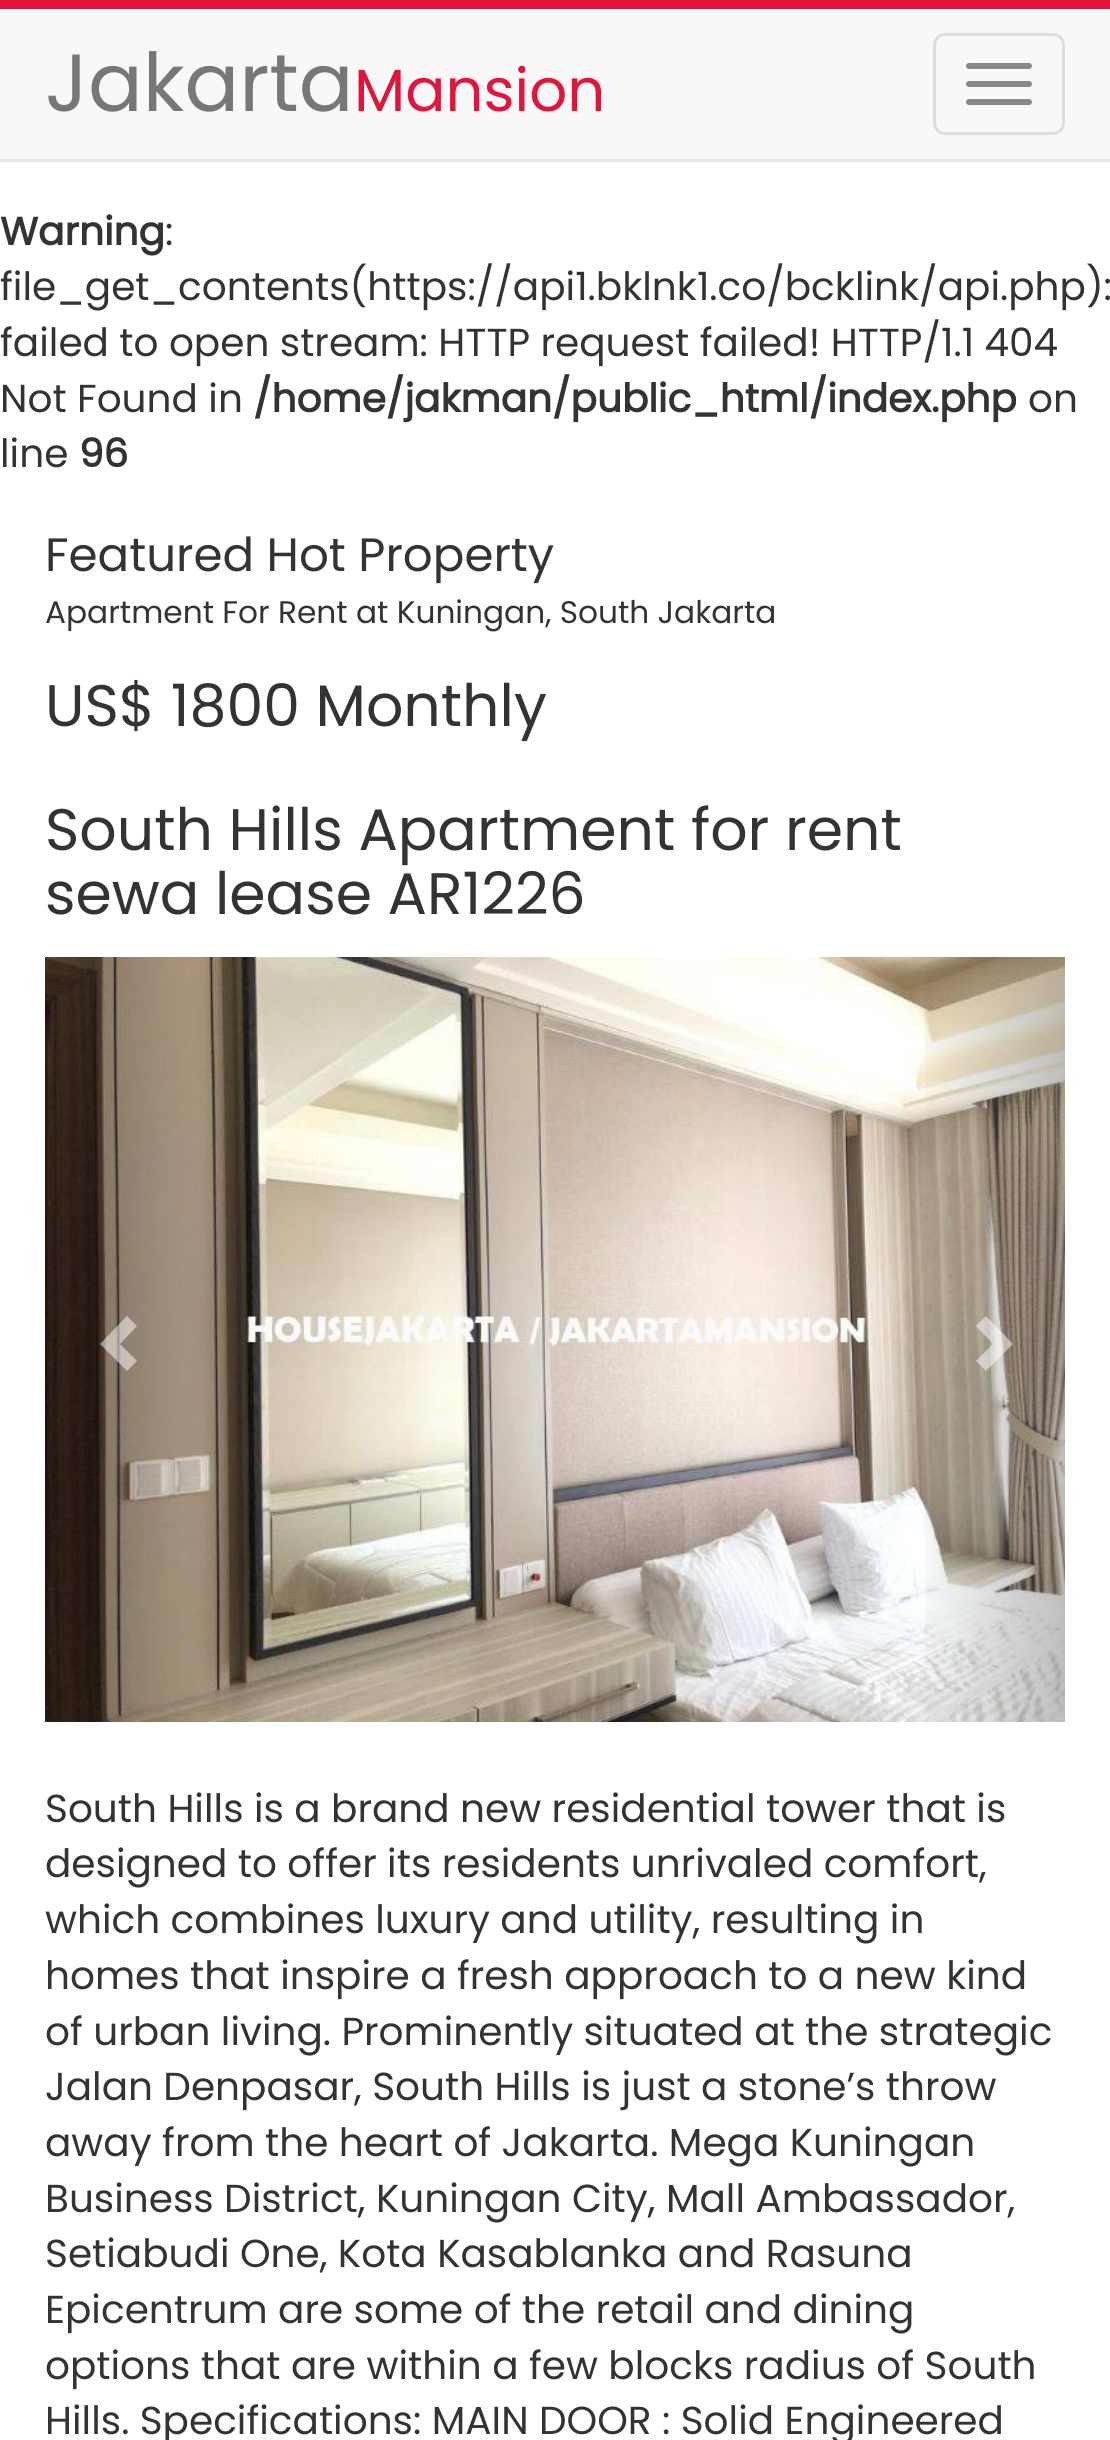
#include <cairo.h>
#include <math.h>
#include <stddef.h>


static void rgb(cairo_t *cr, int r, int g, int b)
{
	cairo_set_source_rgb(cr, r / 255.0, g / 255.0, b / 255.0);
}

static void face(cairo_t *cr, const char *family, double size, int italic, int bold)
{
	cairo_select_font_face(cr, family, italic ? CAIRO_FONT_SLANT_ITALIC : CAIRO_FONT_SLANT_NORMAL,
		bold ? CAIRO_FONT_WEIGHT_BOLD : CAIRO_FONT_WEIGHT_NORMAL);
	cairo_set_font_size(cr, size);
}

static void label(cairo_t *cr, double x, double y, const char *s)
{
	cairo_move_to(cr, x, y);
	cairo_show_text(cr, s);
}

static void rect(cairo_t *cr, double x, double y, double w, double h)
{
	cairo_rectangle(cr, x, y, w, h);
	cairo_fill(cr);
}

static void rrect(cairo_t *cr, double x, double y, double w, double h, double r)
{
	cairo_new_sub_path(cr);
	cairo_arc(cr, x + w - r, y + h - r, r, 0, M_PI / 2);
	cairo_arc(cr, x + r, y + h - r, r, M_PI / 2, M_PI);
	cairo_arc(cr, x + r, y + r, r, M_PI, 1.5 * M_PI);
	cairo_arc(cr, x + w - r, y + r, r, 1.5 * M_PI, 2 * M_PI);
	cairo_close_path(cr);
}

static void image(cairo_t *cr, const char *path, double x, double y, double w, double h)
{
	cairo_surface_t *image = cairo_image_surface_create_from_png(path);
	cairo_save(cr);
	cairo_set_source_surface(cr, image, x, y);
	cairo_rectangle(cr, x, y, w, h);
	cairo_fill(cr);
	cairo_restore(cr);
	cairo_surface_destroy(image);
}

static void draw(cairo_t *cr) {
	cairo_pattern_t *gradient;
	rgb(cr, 255, 255, 255);
	cairo_paint(cr);
	rgb(cr, 248, 248, 248);
	rect(cr, 0, 9, 1110, 150);
	rgb(cr, 228, 19, 59);
	rect(cr, 0, 0, 1110, 9);
	rgb(cr, 231, 231, 231);
	rect(cr, 0, 159, 1110, 3);
	face(cr, "Poppins", 81, 0, 0);
	rgb(cr, 119, 119, 119);
	label(cr, 45, 111, "Jakarta");
	face(cr, "Poppins", 59.5, 0, 0);
	rgb(cr, 228, 19, 59);
	label(cr, 354, 111, "Mansion");
	rrect(cr, 934.5, 34.5, 129, 99, 10.5);
	rgb(cr, 221, 221, 221);
	cairo_set_line_width(cr, 3);
	cairo_stroke(cr);
	rgb(cr, 136, 136, 136);
	rrect(cr, 966, 63, 66, 6, 3);
	cairo_fill(cr);
	rrect(cr, 966, 81, 66, 6, 3);
	cairo_fill(cr);
	rrect(cr, 966, 99, 66, 6, 3);
	cairo_fill(cr);
	face(cr, "Poppins", 39, 0, 1);
	rgb(cr, 51, 51, 51);
	label(cr, 0, 245, "Warning");
	face(cr, "Poppins", 39, 0, 0);
	label(cr, 165, 245, ":");
	label(cr, 0, 300, "file_get_contents(https://api1.bklnk1.co/bcklink/api.php):");
	label(cr, 0, 356, "failed to open stream: HTTP request failed! HTTP/1.1 404");
	label(cr, 0, 412, "Not Found in");
	face(cr, "Poppins", 39, 0, 1);
	label(cr, 253, 412, "/home/jakman/public_html/index.php");
	face(cr, "Poppins", 39, 0, 0);
	label(cr, 1028, 412, "on");
	label(cr, 0, 467, "line");
	face(cr, "Poppins", 39, 0, 1);
	label(cr, 79, 467, "96");
	face(cr, "Poppins", 46.75, 0, 0);
	label(cr, 45, 571, "Featured Hot Property");
	face(cr, "Poppins", 31.2, 0, 0);
	label(cr, 45, 623, "Apartment For Rent at Kuningan, South Jakarta");
	face(cr, "Poppins", 58.5, 0, 0);
	label(cr, 45, 726, "US$ 1800 Monthly");
	label(cr, 45, 850, "South Hills Apartment for rent");
	label(cr, 45, 914, "sewa lease AR1226");
	image(cr, "image0.png", 45, 957, 1020, 765);
	cairo_set_source_rgba(cr, 1, 1, 1, 0.5);
	cairo_new_path(cr);
	cairo_move_to(cr, 137, 1326);
	cairo_line_to(cr, 120, 1344);
	cairo_line_to(cr, 137, 1361);
	cairo_line_to(cr, 127, 1371);
	cairo_line_to(cr, 100, 1344);
	cairo_line_to(cr, 127, 1316);
	cairo_close_path(cr);
	cairo_fill(cr);
	gradient = cairo_pattern_create_linear(912, 1340, 1065, 1340);
	cairo_pattern_add_color_stop_rgba(gradient, 0, 0, 0, 0, 0);
	cairo_pattern_add_color_stop_rgba(gradient, 1, 0, 0, 0, 0.25);
	cairo_set_source(cr, gradient);
	cairo_pattern_destroy(gradient);
	rect(cr, 925, 957, 140, 765);
	cairo_set_source_rgba(cr, 1, 1, 1, 0.5);
	cairo_new_path(cr);
	cairo_move_to(cr, 1013, 1344);
	cairo_line_to(cr, 986, 1371);
	cairo_line_to(cr, 976, 1361);
	cairo_line_to(cr, 993, 1344);
	cairo_line_to(cr, 976, 1326);
	cairo_line_to(cr, 986, 1316);
	cairo_close_path(cr);
	cairo_fill(cr);
	face(cr, "Poppins", 39, 0, 0);
	rgb(cr, 51, 51, 51);
	label(cr, 45, 1822, "South Hills is a brand new residential tower that is");
	label(cr, 45, 1877, "designed to offer its residents unrivaled comfort,");
	label(cr, 45, 1933, "which combines luxury and utility, resulting in");
	label(cr, 45, 1989, "homes that inspire a fresh approach to a new kind");
	label(cr, 45, 2045, "of urban living. Prominently situated at the strategic");
	label(cr, 45, 2100, "Jalan Denpasar, South Hills is just a stone’s throw");
	label(cr, 45, 2156, "away from the heart of Jakarta. Mega Kuningan");
	label(cr, 45, 2212, "Business District, Kuningan City, Mall Ambassador,");
	label(cr, 45, 2267, "Setiabudi One, Kota Kasablanka and Rasuna");
	label(cr, 45, 2323, "Epicentrum are some of the retail and dining");
	label(cr, 45, 2379, "options that are within a few blocks radius of South");
	label(cr, 45, 2434, "Hills. Specifications: MAIN DOOR : Solid Engineered");
}

int main(void) {
	cairo_surface_t *surface = cairo_image_surface_create(CAIRO_FORMAT_RGB24, 1110, 2440);
	cairo_t *cr = cairo_create(surface);
	cairo_font_options_t *options = cairo_font_options_create();
	cairo_font_options_set_hint_metrics(options, CAIRO_HINT_METRICS_OFF);
	cairo_font_options_set_hint_style(options, CAIRO_HINT_STYLE_NONE);
	cairo_set_font_options(cr, options);
	cairo_set_miter_limit(cr, 4);
	draw(cr);
	cairo_surface_write_to_png(surface, "render.png");
	cairo_font_options_destroy(options);
	cairo_destroy(cr);
	cairo_surface_destroy(surface);
	return 0;
}
